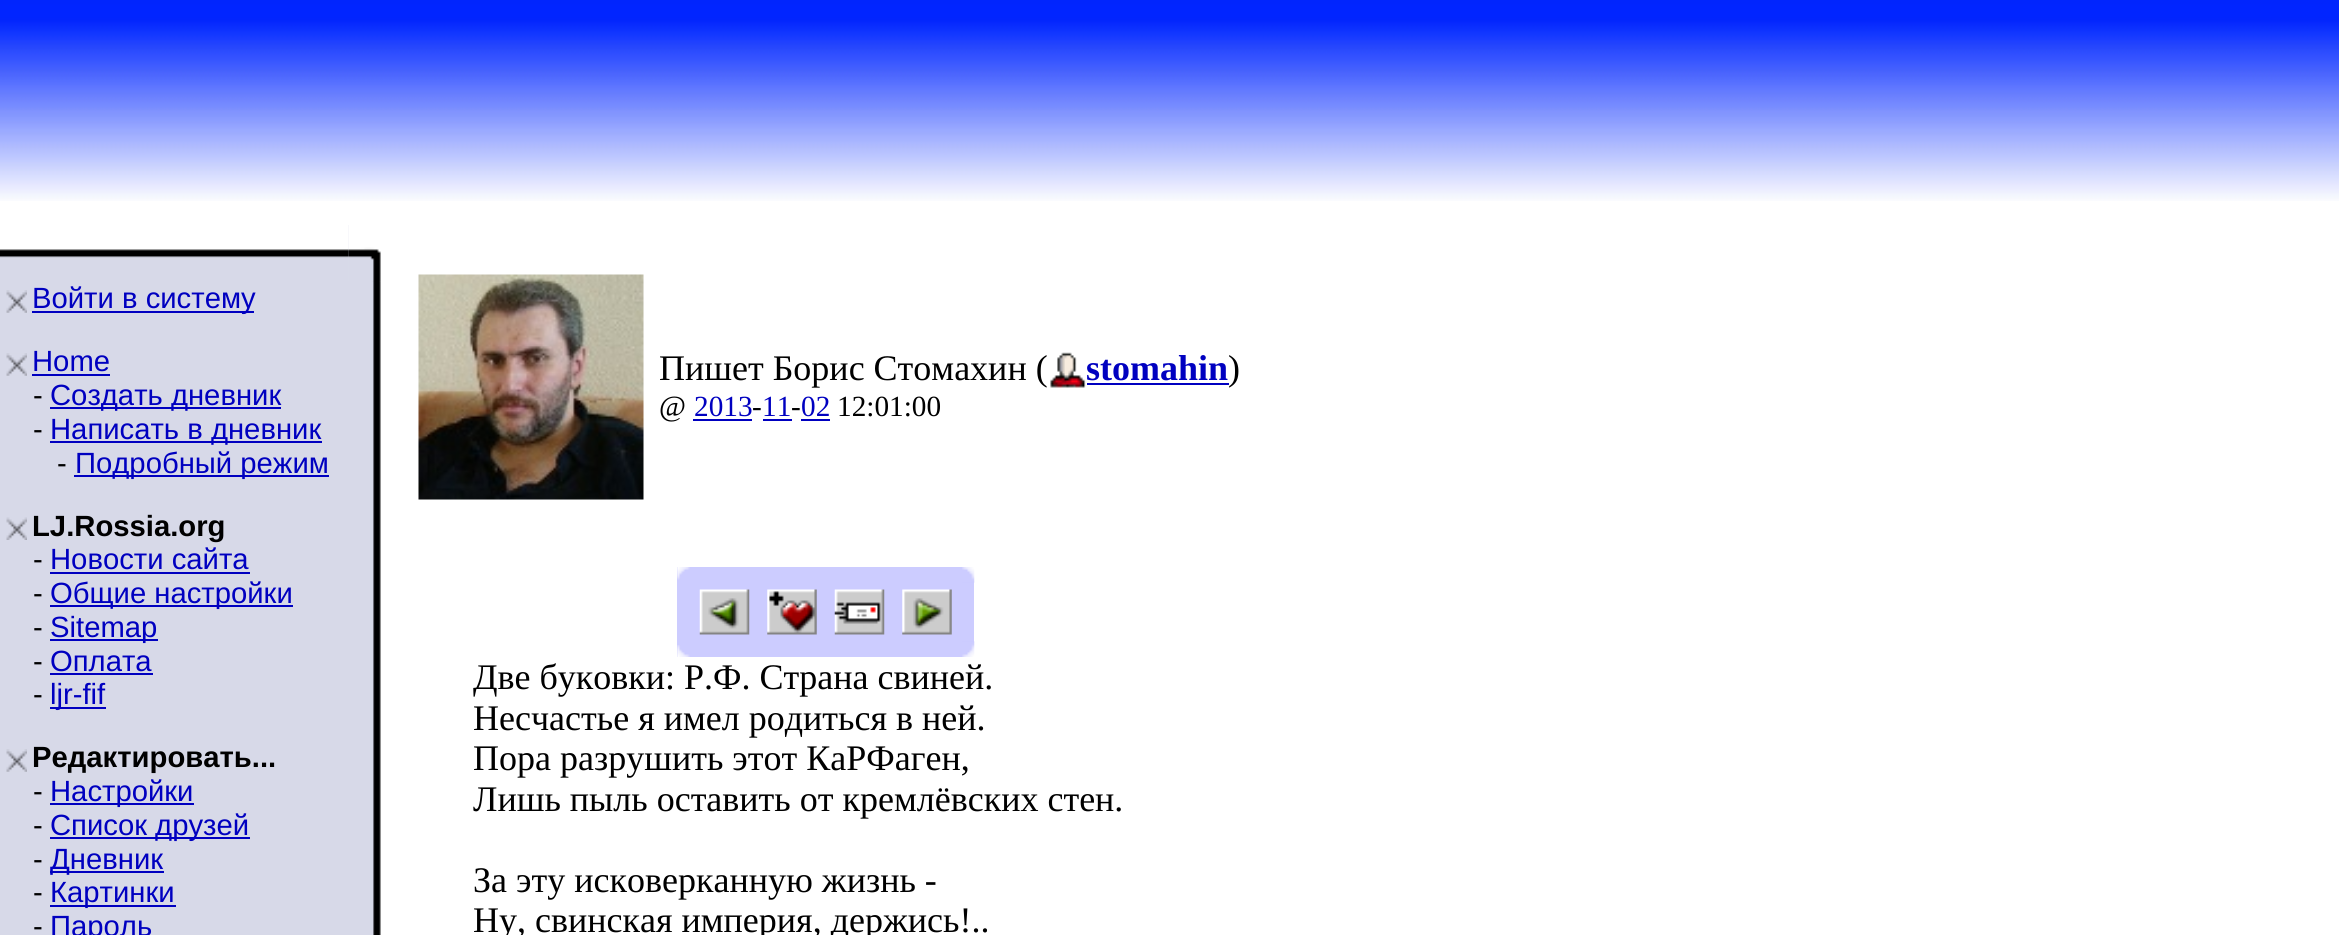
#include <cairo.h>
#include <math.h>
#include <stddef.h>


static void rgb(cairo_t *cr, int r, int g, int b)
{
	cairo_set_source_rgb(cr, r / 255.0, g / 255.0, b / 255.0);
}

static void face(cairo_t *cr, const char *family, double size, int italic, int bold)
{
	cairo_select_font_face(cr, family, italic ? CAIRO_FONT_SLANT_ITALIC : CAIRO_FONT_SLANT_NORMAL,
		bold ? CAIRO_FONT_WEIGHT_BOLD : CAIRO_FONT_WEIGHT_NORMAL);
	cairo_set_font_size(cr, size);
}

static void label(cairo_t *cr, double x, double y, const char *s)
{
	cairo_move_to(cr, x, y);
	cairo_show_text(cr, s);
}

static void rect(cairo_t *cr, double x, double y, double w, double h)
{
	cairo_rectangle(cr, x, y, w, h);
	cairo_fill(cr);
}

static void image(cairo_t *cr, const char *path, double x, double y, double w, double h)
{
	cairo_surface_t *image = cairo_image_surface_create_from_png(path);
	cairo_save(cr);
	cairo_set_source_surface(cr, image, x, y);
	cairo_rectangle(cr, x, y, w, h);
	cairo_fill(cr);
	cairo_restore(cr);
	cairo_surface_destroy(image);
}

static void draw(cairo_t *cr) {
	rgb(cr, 255, 255, 255);
	cairo_paint(cr);
	image(cr, "image0.png", 0, 0, 2339, 201);
	rgb(cr, 215, 217, 232);
	rect(cr, 0, 225, 349, 710);
	image(cr, "image1.png", 0, 225, 349, 33);
	image(cr, "image2.png", 6, 290, 21, 23);
	rgb(cr, 0, 0, 192);
	rect(cr, 32, 311, 222, 2);
	face(cr, "Liberation Sans", 29.25, 0, 0);
	label(cr, 32, 308, "Войти в систему");
	image(cr, "image2.png", 6, 353, 21, 23);
	label(cr, 32, 371, "Home");
	rect(cr, 32, 374, 78, 2);
	rgb(cr, 0, 0, 0);
	label(cr, 33, 405, "-");
	rgb(cr, 0, 0, 192);
	rect(cr, 50, 407, 231, 2);
	label(cr, 50, 405, "Создать дневник");
	rgb(cr, 0, 0, 0);
	label(cr, 33, 439, "-");
	rgb(cr, 0, 0, 192);
	rect(cr, 50, 441, 272, 2);
	label(cr, 50, 439, "Написать в дневник");
	rgb(cr, 0, 0, 0);
	label(cr, 57, 473, "-");
	rgb(cr, 0, 0, 192);
	rect(cr, 74, 475, 255, 2);
	label(cr, 75, 473, "Подробный режим");
	image(cr, "image3.png", 6, 517, 21, 23);
	face(cr, "Liberation Sans", 29.25, 0, 1);
	rgb(cr, 0, 0, 0);
	label(cr, 32, 536, "LJ.Rossia.org");
	face(cr, "Liberation Sans", 29.25, 0, 0);
	label(cr, 33, 569, "-");
	rgb(cr, 0, 0, 192);
	label(cr, 50, 569, "Новости сайта");
	rect(cr, 50, 572, 200, 2);
	rgb(cr, 0, 0, 0);
	label(cr, 33, 603, "-");
	rgb(cr, 0, 0, 192);
	rect(cr, 50, 605, 243, 2);
	label(cr, 50, 603, "Общие настройки");
	rgb(cr, 0, 0, 0);
	label(cr, 33, 637, "-");
	rgb(cr, 0, 0, 192);
	rect(cr, 50, 639, 108, 2);
	label(cr, 50, 637, "Sitemap");
	rgb(cr, 0, 0, 0);
	label(cr, 33, 671, "-");
	rgb(cr, 0, 0, 192);
	label(cr, 50, 671, "Оплата");
	rect(cr, 50, 673, 103, 2);
	rgb(cr, 0, 0, 0);
	label(cr, 33, 704, "-");
	rgb(cr, 0, 0, 192);
	rect(cr, 50, 707, 56, 2);
	label(cr, 50, 704, "ljr-fif");
	image(cr, "image2.png", 6, 749, 21, 23);
	face(cr, "Liberation Sans", 29.25, 0, 1);
	rgb(cr, 0, 0, 0);
	label(cr, 32, 767, "Редактировать...");
	face(cr, "Liberation Sans", 29.25, 0, 0);
	label(cr, 33, 801, "-");
	rgb(cr, 0, 0, 192);
	rect(cr, 50, 803, 144, 2);
	label(cr, 50, 801, "Настройки");
	rgb(cr, 0, 0, 0);
	label(cr, 33, 835, "-");
	rgb(cr, 0, 0, 192);
	rect(cr, 50, 837, 200, 2);
	label(cr, 50, 835, "Список друзей");
	rgb(cr, 0, 0, 0);
	label(cr, 33, 869, "-");
	rgb(cr, 0, 0, 192);
	rect(cr, 50, 871, 114, 2);
	label(cr, 50, 869, "Дневник");
	rgb(cr, 0, 0, 0);
	label(cr, 33, 902, "-");
	rgb(cr, 0, 0, 192);
	rect(cr, 50, 905, 126, 2);
	label(cr, 50, 902, "Картинки");
	rgb(cr, 0, 0, 0);
	label(cr, 33, 936, "-");
	rgb(cr, 0, 0, 192);
	label(cr, 50, 936, "Пароль");
	image(cr, "image4.png", 349, 281, 32, 654);
	image(cr, "image5.png", 348, 225, 33, 56);
	image(cr, "image6.png", 372, 281, 9, 654);
	image(cr, "image7.png", 418, 274, 226, 226);
	face(cr, "Liberation Serif", 36, 0, 0);
	rgb(cr, 0, 0, 0);
	label(cr, 659, 380, "Пишет Борис Стомахин (");
	image(cr, "image8.png", 1050, 352, 36, 36);
	face(cr, "Liberation Serif", 36, 0, 1);
	rgb(cr, 0, 0, 192);
	label(cr, 1086, 380, "stomahin");
	rect(cr, 1087, 383, 142, 2);
	face(cr, "Liberation Serif", 36, 0, 0);
	rgb(cr, 0, 0, 0);
	label(cr, 1228, 380, ")");
	face(cr, "Liberation Serif", 29.25, 0, 0);
	label(cr, 659, 416, "@");
	rgb(cr, 0, 0, 192);
	label(cr, 694, 416, "2013");
	rgb(cr, 0, 0, 0);
	label(cr, 752, 416, "-");
	rgb(cr, 0, 0, 192);
	rect(cr, 693, 419, 59, 2);
	label(cr, 762, 416, "11");
	rgb(cr, 0, 0, 0);
	label(cr, 791, 416, "-");
	rgb(cr, 0, 0, 192);
	rect(cr, 763, 419, 29, 2);
	rect(cr, 801, 419, 29, 2);
	label(cr, 801, 416, "02");
	rgb(cr, 0, 0, 0);
	label(cr, 837, 416, "12:01:00");
	rgb(cr, 204, 204, 255);
	rect(cr, 677, 567, 297, 90);
	image(cr, "image9.png", 677, 567, 13, 13);
	image(cr, "image10.png", 962, 567, 13, 16);
	image(cr, "image11.png", 699, 589, 51, 46);
	image(cr, "image12.png", 767, 589, 50, 46);
	image(cr, "image13.png", 834, 589, 51, 46);
	image(cr, "image14.png", 902, 589, 50, 46);
	image(cr, "image15.png", 677, 645, 13, 12);
	image(cr, "image16.png", 962, 641, 13, 16);
	face(cr, "Liberation Serif", 36, 0, 0);
	rgb(cr, 0, 0, 0);
	label(cr, 473, 689, "Две буковки: Р.Ф. Страна свиней.");
	label(cr, 473, 730, "Несчастье я имел родиться в ней.");
	label(cr, 473, 770, "Пора разрушить этот КаРФаген,");
	label(cr, 473, 811, "Лишь пыль оставить от кремлёвских стен.");
	label(cr, 473, 892, "За эту исковерканную жизнь -");
	label(cr, 473, 932, "Ну, свинская империя, держись!..");
}

int main(void) {
	cairo_surface_t *surface = cairo_image_surface_create(CAIRO_FORMAT_RGB24, 2339, 935);
	cairo_t *cr = cairo_create(surface);
	cairo_font_options_t *options = cairo_font_options_create();
	cairo_font_options_set_hint_metrics(options, CAIRO_HINT_METRICS_OFF);
	cairo_font_options_set_hint_style(options, CAIRO_HINT_STYLE_NONE);
	cairo_set_font_options(cr, options);
	cairo_set_miter_limit(cr, 4);
	draw(cr);
	cairo_surface_write_to_png(surface, "render.png");
	cairo_font_options_destroy(options);
	cairo_destroy(cr);
	cairo_surface_destroy(surface);
	return 0;
}
